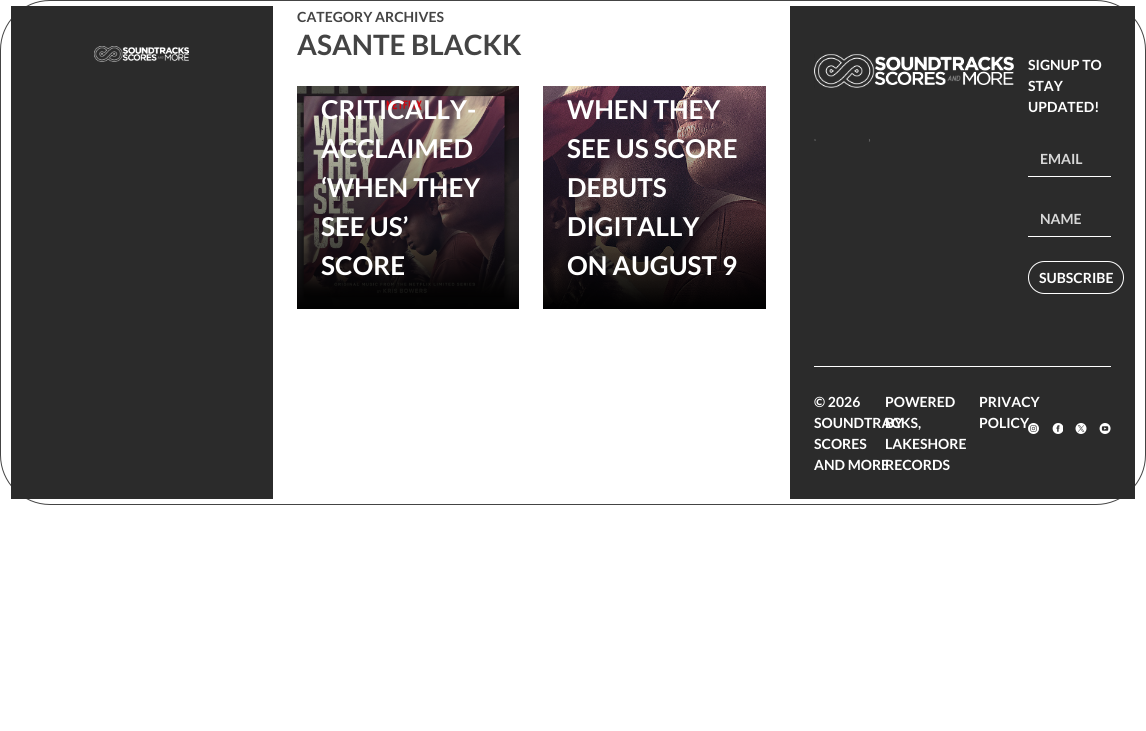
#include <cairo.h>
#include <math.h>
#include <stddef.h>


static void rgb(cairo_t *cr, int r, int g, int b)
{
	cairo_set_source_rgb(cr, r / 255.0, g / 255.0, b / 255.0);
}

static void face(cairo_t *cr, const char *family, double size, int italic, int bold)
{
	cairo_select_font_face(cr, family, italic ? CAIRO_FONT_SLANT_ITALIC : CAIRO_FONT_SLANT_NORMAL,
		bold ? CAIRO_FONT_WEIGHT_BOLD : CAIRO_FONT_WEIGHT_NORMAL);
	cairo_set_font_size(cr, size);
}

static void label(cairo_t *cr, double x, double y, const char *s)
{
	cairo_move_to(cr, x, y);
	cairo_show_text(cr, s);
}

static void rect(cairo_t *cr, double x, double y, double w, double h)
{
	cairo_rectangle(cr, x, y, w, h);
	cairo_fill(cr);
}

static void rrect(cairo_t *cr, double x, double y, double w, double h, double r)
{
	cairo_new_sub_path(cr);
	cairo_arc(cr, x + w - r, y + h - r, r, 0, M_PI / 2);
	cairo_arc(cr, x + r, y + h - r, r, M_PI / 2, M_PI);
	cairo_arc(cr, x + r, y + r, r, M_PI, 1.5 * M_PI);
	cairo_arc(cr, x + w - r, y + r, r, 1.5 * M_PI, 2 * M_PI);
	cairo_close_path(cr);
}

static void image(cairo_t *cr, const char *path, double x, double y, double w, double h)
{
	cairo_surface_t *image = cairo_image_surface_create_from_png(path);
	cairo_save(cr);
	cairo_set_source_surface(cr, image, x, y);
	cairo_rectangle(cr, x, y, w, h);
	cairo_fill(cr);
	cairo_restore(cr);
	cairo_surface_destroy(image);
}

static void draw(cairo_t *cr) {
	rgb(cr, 255, 255, 255);
	cairo_paint(cr);
	rrect(cr, 0.5, 0.5, 1145, 504, 49.5);
	rgb(cr, 68, 68, 68);
	cairo_set_line_width(cr, 1);
	cairo_stroke(cr);
	rgb(cr, 43, 43, 43);
	rect(cr, 11, 6, 262, 493);
	image(cr, "image0.png", 94, 46, 95, 16);
	face(cr, "Lato", 14, 0, 1);
	rgb(cr, 68, 68, 68);
	label(cr, 297, 22, "CATEGORY ARCHIVES");
	face(cr, "Lato", 28, 0, 1);
	label(cr, 297, 55, "ASANTE BLACKK");
	image(cr, "image1.png", 297, 86, 222, 223);
	face(cr, "Lato", 26, 0, 1);
	rgb(cr, 255, 255, 255);
	label(cr, 321, 119, "CRITICALLY-");
	label(cr, 321, 158, "ACCLAIMED");
	label(cr, 321, 197, "‘WHEN THEY");
	label(cr, 321, 236, "SEE US’");
	label(cr, 321, 275, "SCORE");
	image(cr, "image2.png", 543, 86, 223, 223);
	label(cr, 567, 119, "WHEN THEY");
	label(cr, 567, 158, "SEE US SCORE");
	label(cr, 567, 197, "DEBUTS");
	label(cr, 567, 236, "DIGITALLY");
	label(cr, 567, 275, "ON AUGUST 9");
	rgb(cr, 43, 43, 43);
	rect(cr, 790, 6, 345, 493);
	image(cr, "image3.png", 814, 54, 200, 34);
	image(cr, "image4.png", 814, 139, 2, 2);
	cairo_new_path(cr);
	cairo_move_to(cr, 869, 139);
	cairo_line_to(cr, 870, 140.5);
	cairo_line_to(cr, 869, 141.5);
	rgb(cr, 255, 255, 255);
	cairo_set_line_width(cr, 0.2);
	cairo_set_line_cap(cr, CAIRO_LINE_CAP_ROUND);
	cairo_set_line_join(cr, CAIRO_LINE_JOIN_ROUND);
	cairo_stroke(cr);
	face(cr, "Lato", 14, 0, 1);
	label(cr, 1028, 70, "SIGNUP TO");
	label(cr, 1028, 91, "STAY");
	label(cr, 1028, 112, "UPDATED!");
	rect(cr, 1028, 176, 83, 1);
	rgb(cr, 216, 216, 216);
	label(cr, 1040, 164, "EMAIL");
	rgb(cr, 255, 255, 255);
	rect(cr, 1028, 236, 83, 1);
	rgb(cr, 216, 216, 216);
	label(cr, 1040, 224, "NAME");
	rrect(cr, 1028.5, 261.5, 95, 32, 16);
	rgb(cr, 255, 255, 255);
	cairo_set_line_width(cr, 1);
	cairo_set_line_cap(cr, CAIRO_LINE_CAP_BUTT);
	cairo_set_line_join(cr, CAIRO_LINE_JOIN_MITER);
	cairo_stroke(cr);
	label(cr, 1039, 283, "SUBSCRIBE");
	rect(cr, 814, 366, 297, 1);
	label(cr, 814, 407, "© 2026");
	label(cr, 814, 428, "SOUNDTRACKS,");
	label(cr, 814, 449, "SCORES");
	label(cr, 814, 470, "AND MORE");
	label(cr, 885, 407, "POWERED");
	label(cr, 885, 428, "BY");
	label(cr, 885, 449, "LAKESHORE");
	label(cr, 885, 470, "RECORDS");
	label(cr, 979, 407, "PRIVACY");
	label(cr, 979, 428, "POLICY");
	image(cr, "image5.png", 1028, 423, 11, 11);
	image(cr, "image6.png", 1052, 423, 11, 11);
	image(cr, "image7.png", 1075, 423, 12, 11);
	image(cr, "image8.png", 1099, 423, 12, 11);
}

int main(void) {
	cairo_surface_t *surface = cairo_image_surface_create(CAIRO_FORMAT_RGB24, 1146, 731);
	cairo_t *cr = cairo_create(surface);
	cairo_font_options_t *options = cairo_font_options_create();
	cairo_font_options_set_hint_metrics(options, CAIRO_HINT_METRICS_OFF);
	cairo_font_options_set_hint_style(options, CAIRO_HINT_STYLE_NONE);
	cairo_set_font_options(cr, options);
	cairo_set_miter_limit(cr, 4);
	draw(cr);
	cairo_surface_write_to_png(surface, "render.png");
	cairo_font_options_destroy(options);
	cairo_destroy(cr);
	cairo_surface_destroy(surface);
	return 0;
}
